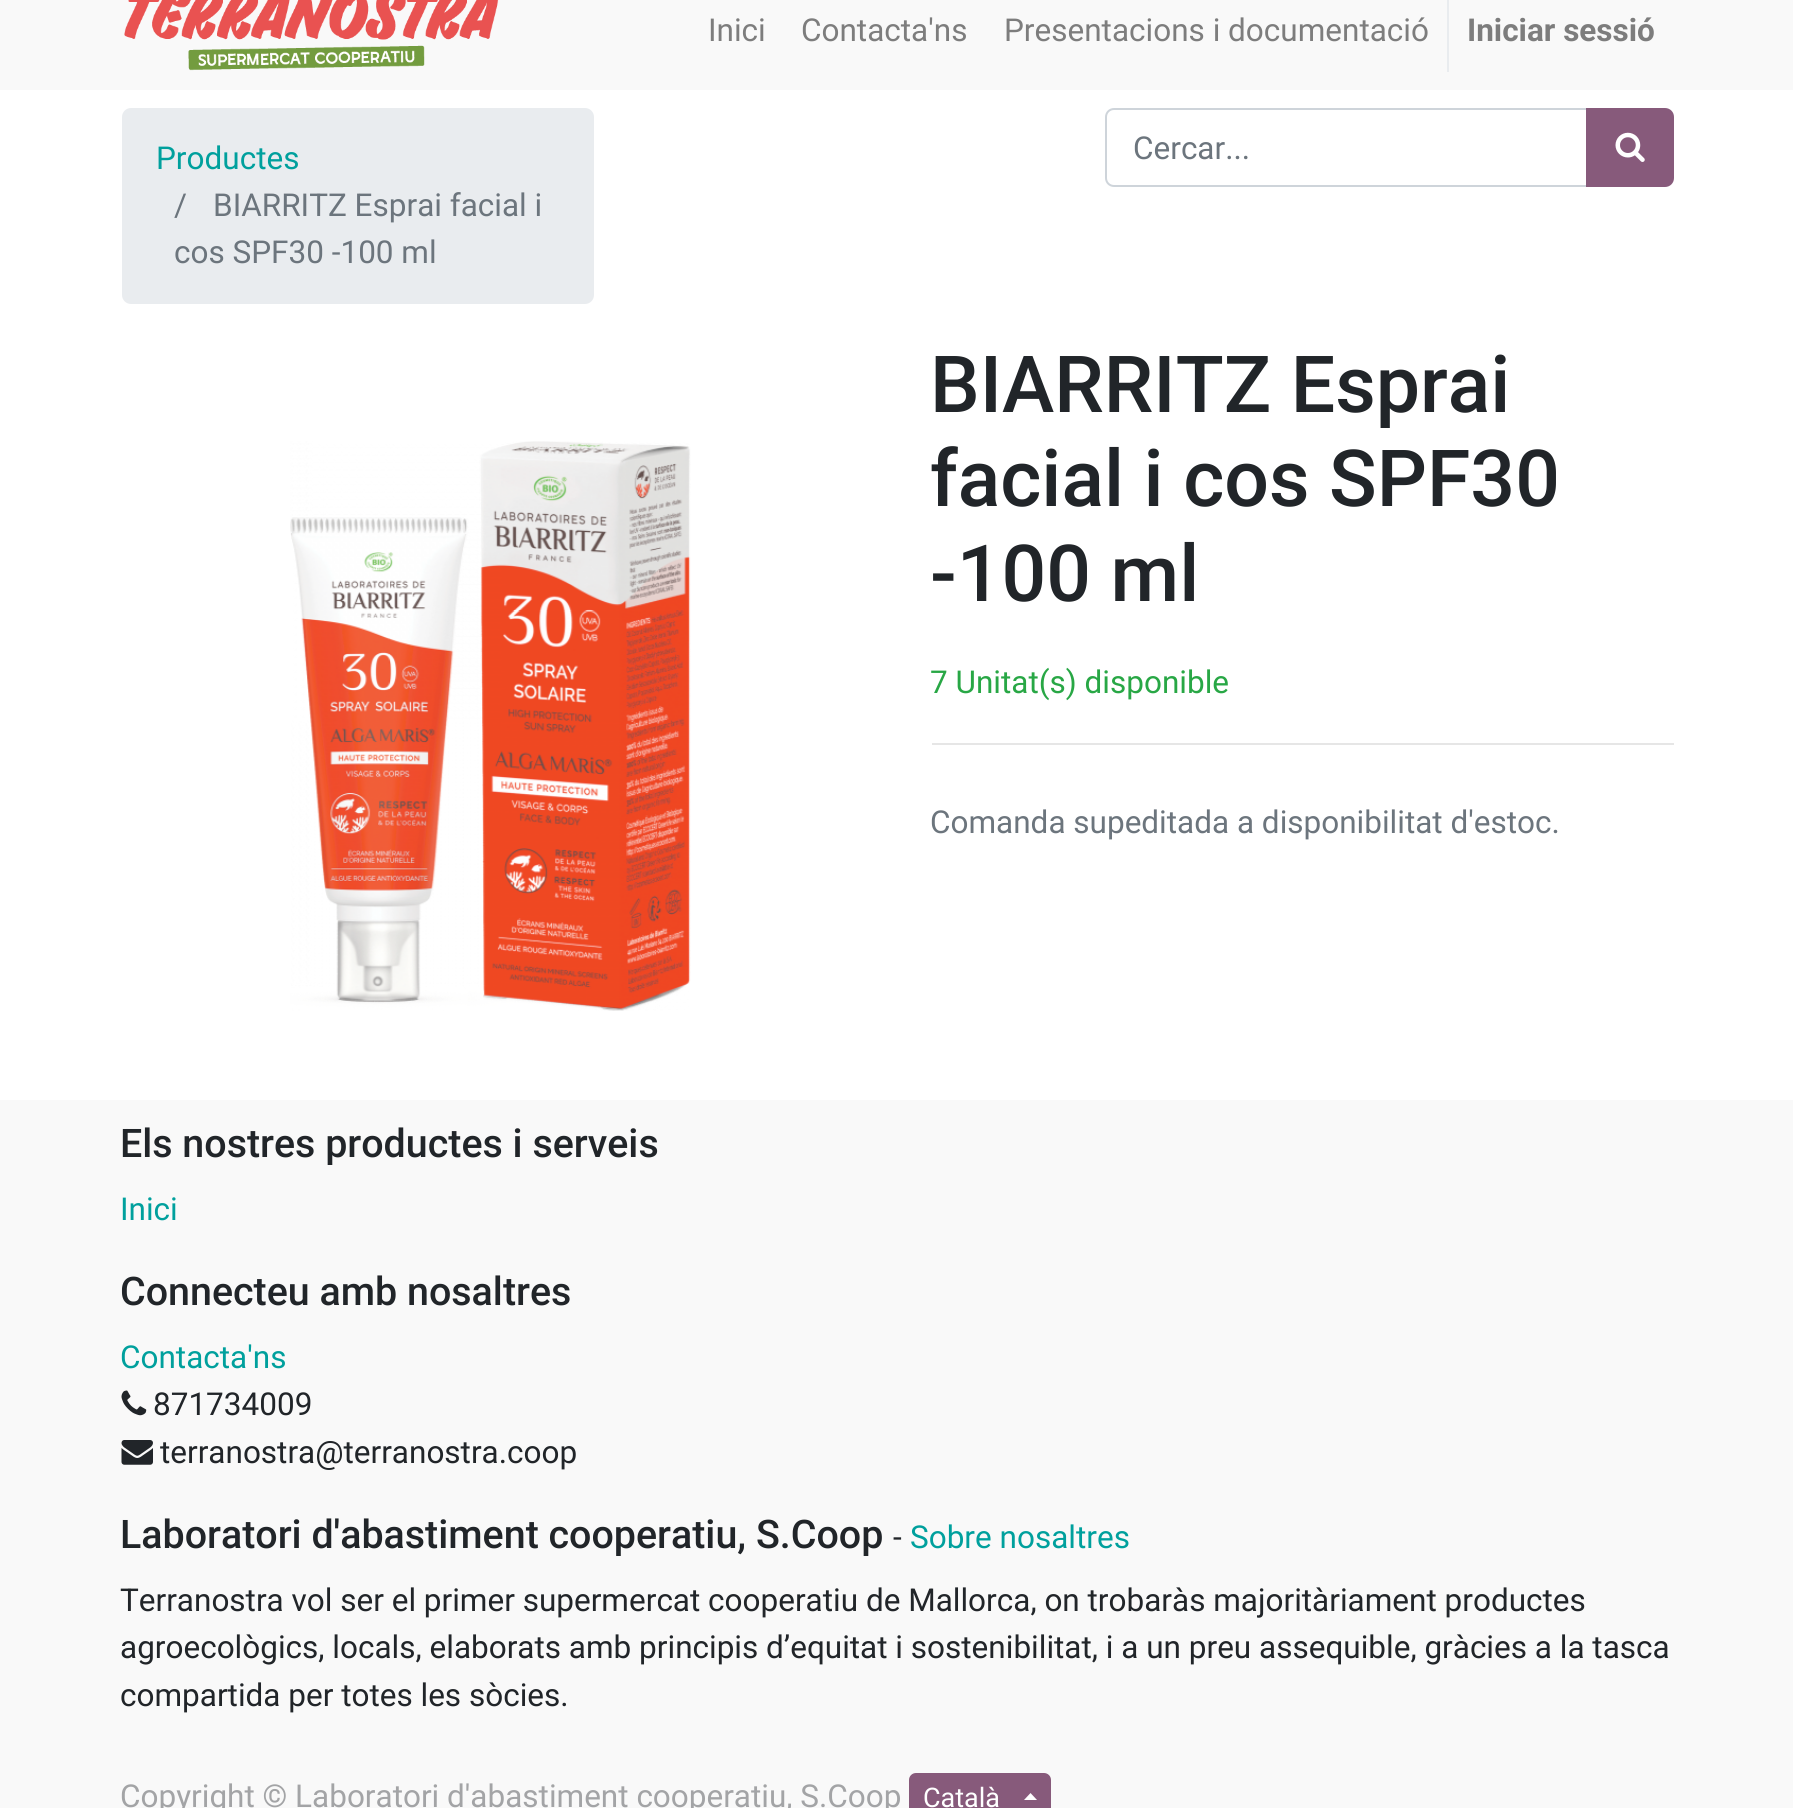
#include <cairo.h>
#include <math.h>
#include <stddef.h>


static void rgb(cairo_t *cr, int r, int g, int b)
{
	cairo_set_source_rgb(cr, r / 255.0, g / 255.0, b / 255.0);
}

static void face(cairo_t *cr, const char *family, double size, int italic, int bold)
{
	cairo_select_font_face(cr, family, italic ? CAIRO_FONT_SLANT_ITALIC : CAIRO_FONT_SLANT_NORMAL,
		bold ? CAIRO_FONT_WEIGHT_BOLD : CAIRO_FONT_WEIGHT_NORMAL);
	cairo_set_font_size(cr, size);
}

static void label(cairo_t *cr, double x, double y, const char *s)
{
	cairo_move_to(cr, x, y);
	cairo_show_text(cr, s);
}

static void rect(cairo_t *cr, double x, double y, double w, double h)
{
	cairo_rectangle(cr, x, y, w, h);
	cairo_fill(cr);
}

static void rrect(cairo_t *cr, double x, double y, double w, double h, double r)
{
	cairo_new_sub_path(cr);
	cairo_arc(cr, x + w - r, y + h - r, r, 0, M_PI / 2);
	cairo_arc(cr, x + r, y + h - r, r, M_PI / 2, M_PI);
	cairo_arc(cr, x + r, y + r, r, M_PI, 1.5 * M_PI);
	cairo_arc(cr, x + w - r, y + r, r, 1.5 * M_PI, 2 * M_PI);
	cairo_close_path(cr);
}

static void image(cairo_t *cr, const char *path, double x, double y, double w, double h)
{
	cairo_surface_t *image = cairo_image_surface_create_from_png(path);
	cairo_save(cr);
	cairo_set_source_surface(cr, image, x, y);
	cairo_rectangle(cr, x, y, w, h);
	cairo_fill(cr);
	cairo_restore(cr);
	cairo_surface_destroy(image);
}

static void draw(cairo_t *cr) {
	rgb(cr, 255, 255, 255);
	cairo_paint(cr);
	rgb(cr, 249, 249, 249);
	rect(cr, 0, 0, 1793, 90);
	image(cr, "image0.png", 124, 0, 375, 71);
	face(cr, "Roboto", 31.5, 0, 0);
	rgb(cr, 125, 125, 125);
	label(cr, 708, 41, "Inici");
	label(cr, 801, 41, "Contacta'ns");
	label(cr, 1004, 41, "Presentacions i documentació");
	rgb(cr, 233, 236, 239);
	rect(cr, 1447, 0, 2, 72);
	face(cr, "Roboto", 31.5, 0, 1);
	rgb(cr, 125, 125, 125);
	label(cr, 1467, 41, "Iniciar sessió");
	rgb(cr, 233, 236, 239);
	rrect(cr, 122, 108, 472, 196, 9);
	cairo_fill(cr);
	face(cr, "Roboto", 31.5, 0, 0);
	rgb(cr, 0, 160, 157);
	label(cr, 156, 169, "Productes");
	rgb(cr, 108, 117, 125);
	label(cr, 174, 216, "/");
	label(cr, 213, 216, "BIARRITZ Esprai facial i");
	label(cr, 174, 263, "cos SPF30 -100 ml");
	cairo_new_path(cr);
	cairo_move_to(cr, 1114, 109);
	cairo_line_to(cr, 1588, 109);
	cairo_line_to(cr, 1588, 186);
	cairo_line_to(cr, 1114, 186);
	cairo_curve_to(cr, 1109.5, 186, 1106, 182.5, 1106, 178);
	cairo_line_to(cr, 1106, 117);
	cairo_curve_to(cr, 1106, 112.5, 1109.5, 109, 1114, 109);
	cairo_close_path(cr);
	rgb(cr, 206, 212, 218);
	cairo_stroke(cr);
	rgb(cr, 108, 117, 125);
	label(cr, 1133, 159, "Cercar...");
	rgb(cr, 135, 90, 123);
	cairo_new_path(cr);
	cairo_move_to(cr, 1587, 109);
	cairo_line_to(cr, 1665, 109);
	cairo_curve_to(cr, 1669.5, 109, 1673, 112.5, 1673, 117);
	cairo_line_to(cr, 1673, 178);
	cairo_curve_to(cr, 1673, 182.5, 1669.5, 186, 1665, 186);
	cairo_line_to(cr, 1587, 186);
	cairo_close_path(cr);
	cairo_fill_preserve(cr);
	cairo_stroke(cr);
	image(cr, "image1.png", 1615, 132, 30, 30);
	image(cr, "image2.png", 290, 441, 401, 570);
	face(cr, "Roboto Medium", 78.75, 0, 0);
	rgb(cr, 33, 37, 41);
	label(cr, 930, 412, "BIARRITZ Esprai");
	label(cr, 930, 506, "facial i cos SPF30");
	label(cr, 930, 601, "-100 ml");
	face(cr, "Roboto", 31.5, 0, 0);
	rgb(cr, 40, 167, 69);
	label(cr, 930, 693, "7 Unitat(s) disponible");
	rgb(cr, 230, 230, 230);
	rect(cr, 932, 743, 742, 2);
	rgb(cr, 108, 117, 125);
	label(cr, 930, 833, "Comanda supeditada a disponibilitat d'estoc.");
	rgb(cr, 249, 249, 249);
	rect(cr, 0, 1100, 1793, 708);
	face(cr, "Roboto Medium", 39.4, 0, 0);
	rgb(cr, 33, 37, 41);
	label(cr, 120, 1157, "Els nostres productes i serveis");
	face(cr, "Roboto", 31.5, 0, 0);
	rgb(cr, 0, 160, 157);
	label(cr, 120, 1220, "Inici");
	face(cr, "Roboto Medium", 39.4, 0, 0);
	rgb(cr, 33, 37, 41);
	label(cr, 120, 1305, "Connecteu amb nosaltres");
	face(cr, "Roboto", 31.5, 0, 0);
	rgb(cr, 0, 160, 157);
	label(cr, 120, 1368, "Contacta'ns");
	image(cr, "image3.png", 121, 1390, 26, 26);
	rgb(cr, 33, 37, 41);
	label(cr, 153, 1415, "871734009");
	image(cr, "image4.png", 121, 1440, 32, 25);
	label(cr, 160, 1463, "terranostra@terranostra.coop");
	face(cr, "Roboto Medium", 39.4, 0, 0);
	label(cr, 120, 1548, "Laboratori d'abastiment cooperatiu, S.Coop");
	face(cr, "Roboto", 31.5, 0, 0);
	label(cr, 893, 1548, "-");
	rgb(cr, 0, 160, 157);
	label(cr, 910, 1548, "Sobre nosaltres");
	rgb(cr, 33, 37, 41);
	label(cr, 120, 1611, "Terranostra vol ser el primer supermercat cooperatiu de Mallorca, on trobaràs majoritàriament productes");
	label(cr, 120, 1658, "agroecològics, locals, elaborats amb principis d’equitat i sostenibilitat, i a un preu assequible, gràcies a la tasca");
	label(cr, 120, 1706, "compartida per totes les sòcies.");
	rgb(cr, 163, 164, 166);
	label(cr, 120, 1807, "Copyright © Laboratori d'abastiment cooperatiu, S.Coop");
	rgb(cr, 135, 90, 123);
	rrect(cr, 910, 1774, 140, 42, 6);
	cairo_fill_preserve(cr);
	cairo_stroke(cr);
	face(cr, "Roboto", 27, 0, 0);
	rgb(cr, 255, 255, 255);
	label(cr, 923, 1807, "Català");
	cairo_new_path(cr);
	cairo_move_to(cr, 1037, 1800);
	cairo_line_to(cr, 1024, 1800);
	cairo_line_to(cr, 1030.5, 1793);
	cairo_close_path(cr);
	cairo_fill(cr);
}

int main(void) {
	cairo_surface_t *surface = cairo_image_surface_create(CAIRO_FORMAT_RGB24, 1793, 1808);
	cairo_t *cr = cairo_create(surface);
	cairo_font_options_t *options = cairo_font_options_create();
	cairo_font_options_set_hint_metrics(options, CAIRO_HINT_METRICS_OFF);
	cairo_font_options_set_hint_style(options, CAIRO_HINT_STYLE_NONE);
	cairo_set_font_options(cr, options);
	cairo_set_miter_limit(cr, 4);
	draw(cr);
	cairo_surface_write_to_png(surface, "render.png");
	cairo_font_options_destroy(options);
	cairo_destroy(cr);
	cairo_surface_destroy(surface);
	return 0;
}
